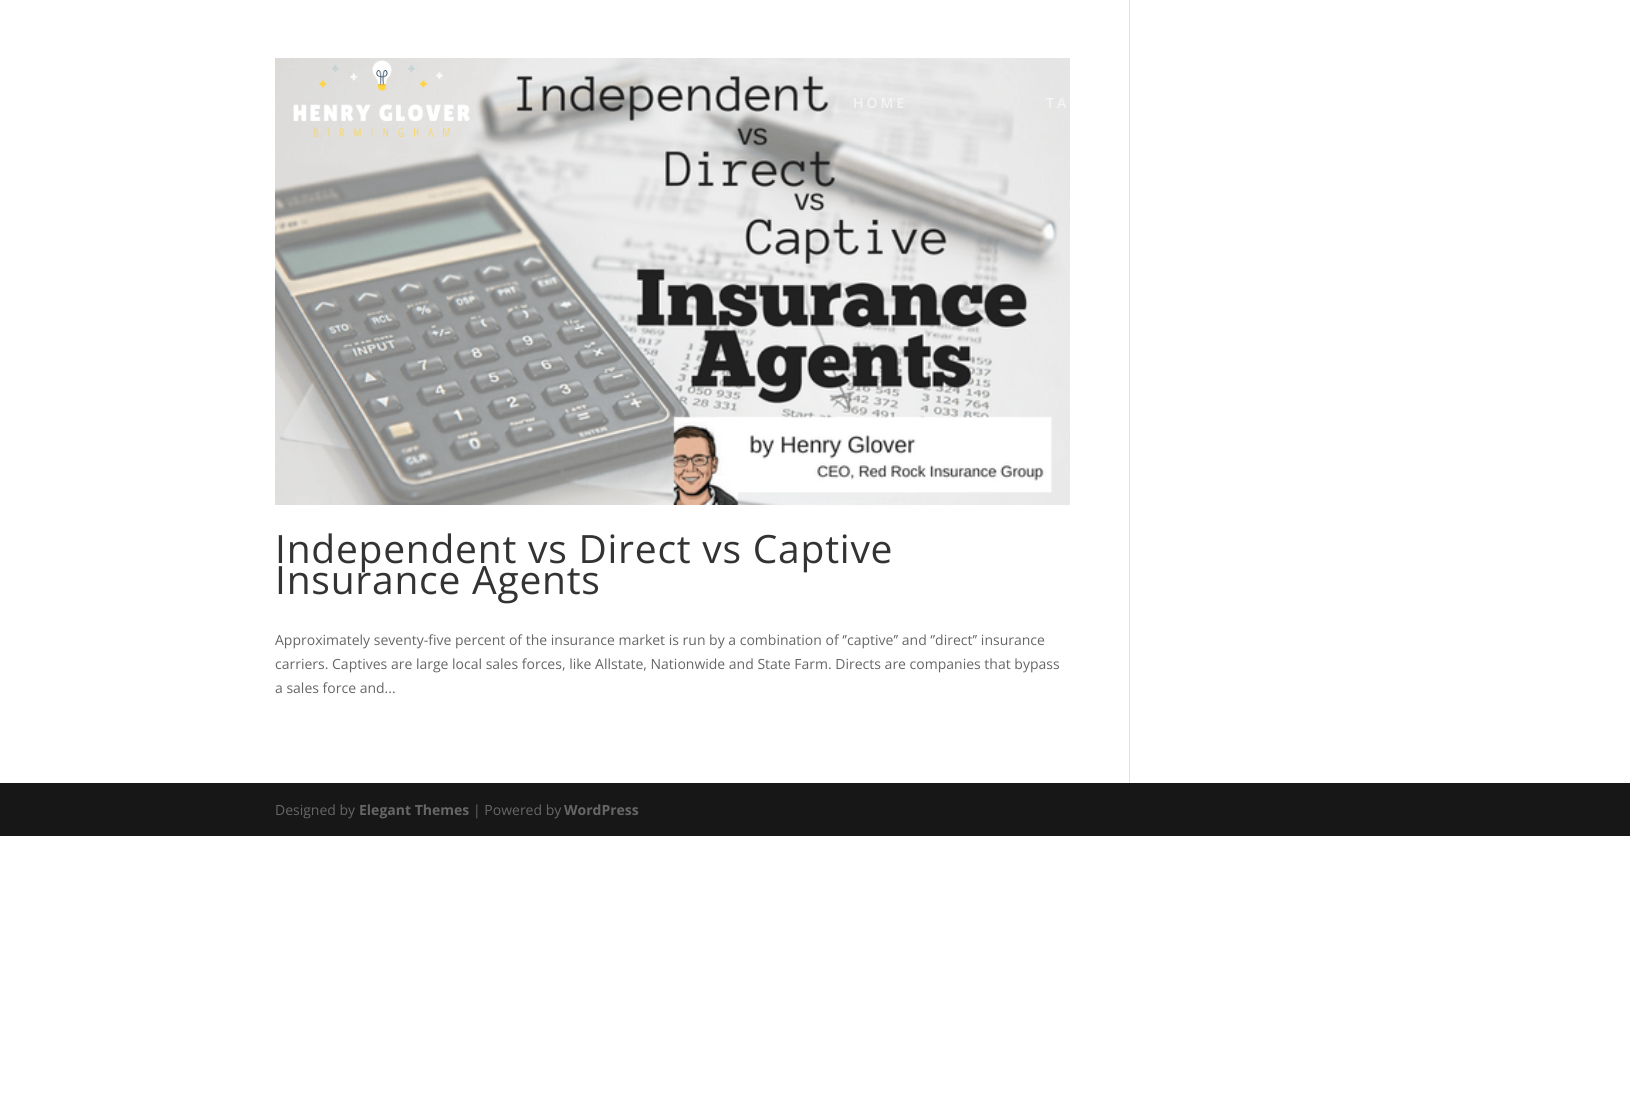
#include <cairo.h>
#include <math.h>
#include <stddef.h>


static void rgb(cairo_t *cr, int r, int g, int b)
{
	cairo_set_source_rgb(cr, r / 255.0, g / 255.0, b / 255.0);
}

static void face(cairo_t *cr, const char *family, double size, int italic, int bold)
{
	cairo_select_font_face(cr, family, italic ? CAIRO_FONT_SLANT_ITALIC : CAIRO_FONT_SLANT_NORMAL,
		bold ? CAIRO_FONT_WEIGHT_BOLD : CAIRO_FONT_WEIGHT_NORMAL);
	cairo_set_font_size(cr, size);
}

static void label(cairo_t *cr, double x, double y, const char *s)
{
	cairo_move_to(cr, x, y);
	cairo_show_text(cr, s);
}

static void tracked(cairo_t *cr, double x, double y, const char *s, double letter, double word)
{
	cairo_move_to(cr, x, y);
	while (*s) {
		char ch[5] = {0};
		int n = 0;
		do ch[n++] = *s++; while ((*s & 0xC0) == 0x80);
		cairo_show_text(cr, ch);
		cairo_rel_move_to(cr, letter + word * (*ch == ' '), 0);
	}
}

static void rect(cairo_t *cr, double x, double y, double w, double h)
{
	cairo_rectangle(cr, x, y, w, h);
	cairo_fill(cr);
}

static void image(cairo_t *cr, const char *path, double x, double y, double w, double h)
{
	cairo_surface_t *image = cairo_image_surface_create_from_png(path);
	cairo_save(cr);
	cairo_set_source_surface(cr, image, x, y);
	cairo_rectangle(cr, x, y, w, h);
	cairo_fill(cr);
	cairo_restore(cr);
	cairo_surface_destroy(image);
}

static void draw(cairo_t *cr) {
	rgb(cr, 255, 255, 255);
	cairo_paint(cr);
	image(cr, "image1.png", 275, 58, 795, 447);
	image(cr, "image0.png", 293, 60, 177, 77);
	face(cr, "Open Sans SemiBold", 14, 0, 0);
	rgb(cr, 244, 244, 244);
	tracked(cr, 853, 108, "HOME", 3, 0);
	tracked(cr, 1046, 108, "TA", 3, 0);
	face(cr, "Open Sans", 39, 0, 0);
	rgb(cr, 51, 51, 51);
	tracked(cr, 275, 563, "Independent vs Direct vs Captive", 0.75, 0);
	tracked(cr, 275, 594, "Insurance Agents", 0.75, 0);
	face(cr, "Open Sans", 14, 0, 0);
	rgb(cr, 102, 102, 102);
	label(cr, 275, 645, "Approximately seventy-five percent of the insurance market is run by a combination of ‘’captive’’ and ‘’direct’’ insurance");
	label(cr, 275, 669, "carriers. Captives are large local sales forces, like Allstate, Nationwide and State Farm. Directs are companies that bypass");
	label(cr, 275, 693, "a sales force and...");
	rgb(cr, 226, 226, 226);
	rect(cr, 1129, 0, 1, 783);
	rgb(cr, 23, 23, 23);
	rect(cr, 0, 783, 1630, 53);
	rgb(cr, 102, 102, 102);
	label(cr, 275, 815, "Designed by");
	face(cr, "Open Sans", 14, 0, 1);
	label(cr, 359, 815, "Elegant Themes");
	face(cr, "Open Sans", 14, 0, 0);
	label(cr, 473, 815, "| Powered by");
	face(cr, "Open Sans", 14, 0, 1);
	label(cr, 564, 815, "WordPress");
}

int main(void) {
	cairo_surface_t *surface = cairo_image_surface_create(CAIRO_FORMAT_RGB24, 1630, 1108);
	cairo_t *cr = cairo_create(surface);
	cairo_font_options_t *options = cairo_font_options_create();
	cairo_font_options_set_hint_metrics(options, CAIRO_HINT_METRICS_OFF);
	cairo_font_options_set_hint_style(options, CAIRO_HINT_STYLE_NONE);
	cairo_set_font_options(cr, options);
	cairo_set_miter_limit(cr, 4);
	draw(cr);
	cairo_surface_write_to_png(surface, "render.png");
	cairo_font_options_destroy(options);
	cairo_destroy(cr);
	cairo_surface_destroy(surface);
	return 0;
}
